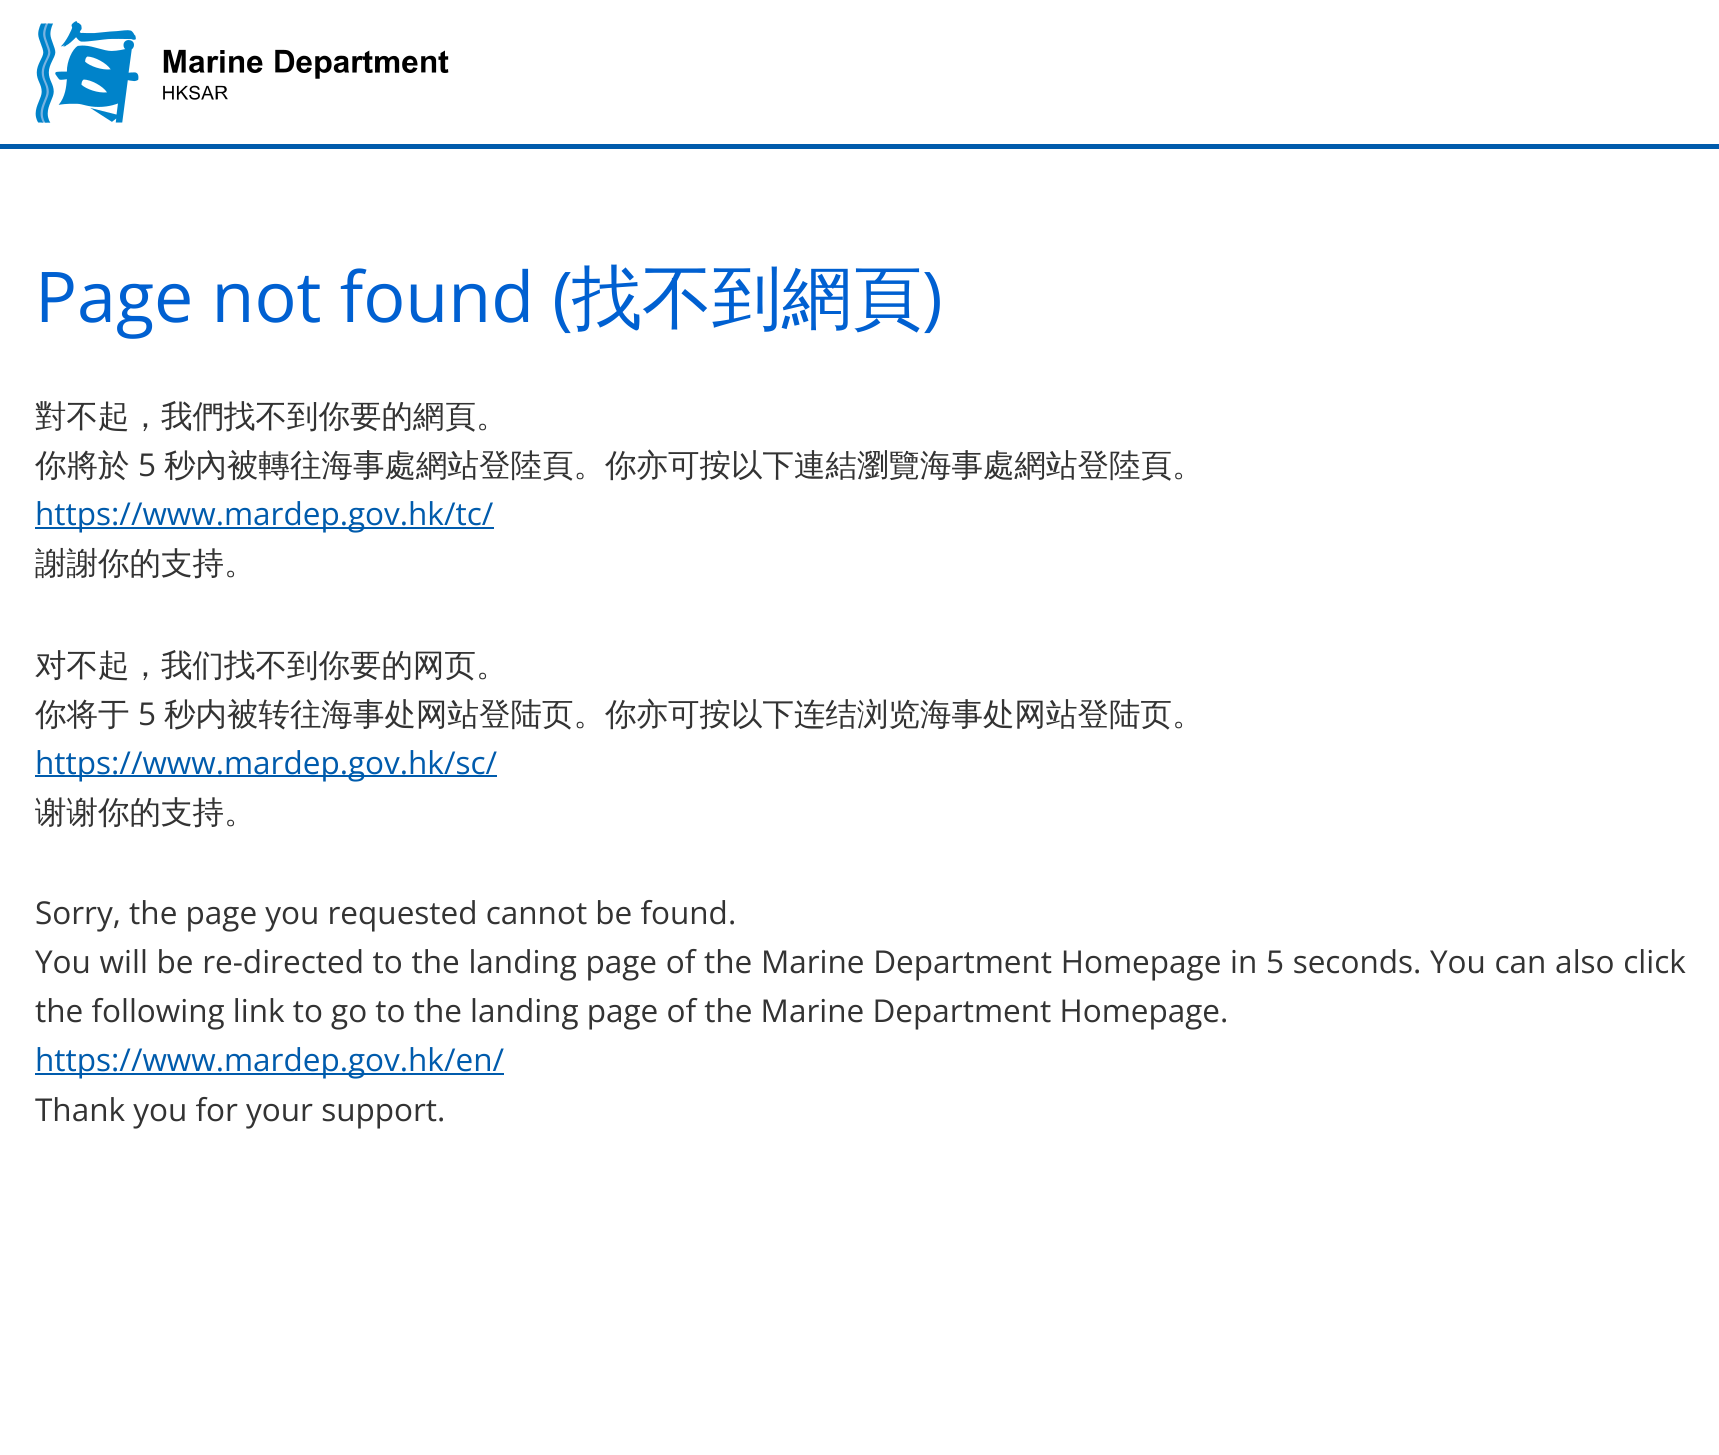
#include <cairo.h>
#include <math.h>
#include <stddef.h>


static void rgb(cairo_t *cr, int r, int g, int b)
{
	cairo_set_source_rgb(cr, r / 255.0, g / 255.0, b / 255.0);
}

static void face(cairo_t *cr, const char *family, double size, int italic, int bold)
{
	cairo_select_font_face(cr, family, italic ? CAIRO_FONT_SLANT_ITALIC : CAIRO_FONT_SLANT_NORMAL,
		bold ? CAIRO_FONT_WEIGHT_BOLD : CAIRO_FONT_WEIGHT_NORMAL);
	cairo_set_font_size(cr, size);
}

static void label(cairo_t *cr, double x, double y, const char *s)
{
	cairo_move_to(cr, x, y);
	cairo_show_text(cr, s);
}

static void tracked(cairo_t *cr, double x, double y, const char *s, double letter, double word)
{
	cairo_move_to(cr, x, y);
	while (*s) {
		char ch[5] = {0};
		int n = 0;
		do ch[n++] = *s++; while ((*s & 0xC0) == 0x80);
		cairo_show_text(cr, ch);
		cairo_rel_move_to(cr, letter + word * (*ch == ' '), 0);
	}
}

static void rect(cairo_t *cr, double x, double y, double w, double h)
{
	cairo_rectangle(cr, x, y, w, h);
	cairo_fill(cr);
}

static void image(cairo_t *cr, const char *path, double x, double y, double w, double h)
{
	cairo_surface_t *image = cairo_image_surface_create_from_png(path);
	cairo_save(cr);
	cairo_set_source_surface(cr, image, x, y);
	cairo_rectangle(cr, x, y, w, h);
	cairo_fill(cr);
	cairo_restore(cr);
	cairo_surface_destroy(image);
}

static void draw(cairo_t *cr) {
	rgb(cr, 255, 255, 255);
	cairo_paint(cr);
	image(cr, "image0.png", 35, 21, 414, 102);
	rgb(cr, 0, 91, 172);
	rect(cr, 0, 144, 1719, 5);
	face(cr, "Open Sans", 70, 0, 0);
	rgb(cr, 0, 96, 209);
	label(cr, 35, 322, "Page not found (");
	face(cr, "WenQuanYi Zen Hei Medium", 70, 0, 0);
	label(cr, 572, 322, "找不到網頁");
	face(cr, "Open Sans", 70, 0, 0);
	label(cr, 922, 322, ")");
	face(cr, "WenQuanYi Zen Hei Medium", 31.5, 0, 0);
	rgb(cr, 51, 51, 51);
	label(cr, 35, 427, "對不起，我們找不到你要的網頁。");
	label(cr, 35, 476, "你將於");
	face(cr, "Open Sans", 31.5, 0, 0);
	label(cr, 138, 476, "5");
	face(cr, "WenQuanYi Zen Hei Medium", 31.5, 0, 0);
	label(cr, 164, 476, "秒內被轉往海事處網站登陸頁。你亦可按以下連結瀏覽海事處網站登陸頁。");
	rgb(cr, 0, 91, 172);
	rect(cr, 35, 527, 459, 2);
	face(cr, "Open Sans", 31.5, 0, 0);
	label(cr, 35, 525, "https://www.mardep.gov.hk/tc/");
	face(cr, "WenQuanYi Zen Hei Medium", 31.5, 0, 0);
	rgb(cr, 51, 51, 51);
	label(cr, 35, 574, "謝謝你的支持。");
	label(cr, 35, 676, "对不起，我们找不到你要的网页。");
	label(cr, 35, 725, "你将于");
	face(cr, "Open Sans", 31.5, 0, 0);
	label(cr, 138, 725, "5");
	face(cr, "WenQuanYi Zen Hei Medium", 31.5, 0, 0);
	label(cr, 164, 725, "秒内被转往海事处网站登陆页。你亦可按以下连结浏览海事处网站登陆页。");
	rgb(cr, 0, 91, 172);
	rect(cr, 35, 775, 462, 2);
	face(cr, "Open Sans", 31.5, 0, 0);
	label(cr, 35, 774, "https://www.mardep.gov.hk/sc/");
	face(cr, "WenQuanYi Zen Hei Medium", 31.5, 0, 0);
	rgb(cr, 51, 51, 51);
	label(cr, 35, 823, "谢谢你的支持。");
	face(cr, "Open Sans", 31.5, 0, 0);
	label(cr, 35, 924, "Sorry, the page you requested cannot be found.");
	tracked(cr, 35, 973, "You will be re-directed to the landing page of the Marine Department Homepage in 5 seconds. You can also click", 0, 0.5);
	label(cr, 35, 1022, "the following link to go to the landing page of the Marine Department Homepage.");
	rgb(cr, 0, 91, 172);
	rect(cr, 35, 1073, 469, 2);
	label(cr, 35, 1071, "https://www.mardep.gov.hk/en/");
	rgb(cr, 51, 51, 51);
	label(cr, 35, 1121, "Thank you for your support.");
}

int main(void) {
	cairo_surface_t *surface = cairo_image_surface_create(CAIRO_FORMAT_RGB24, 1719, 1455);
	cairo_t *cr = cairo_create(surface);
	cairo_font_options_t *options = cairo_font_options_create();
	cairo_font_options_set_hint_metrics(options, CAIRO_HINT_METRICS_OFF);
	cairo_font_options_set_hint_style(options, CAIRO_HINT_STYLE_NONE);
	cairo_set_font_options(cr, options);
	cairo_set_miter_limit(cr, 4);
	draw(cr);
	cairo_surface_write_to_png(surface, "render.png");
	cairo_font_options_destroy(options);
	cairo_destroy(cr);
	cairo_surface_destroy(surface);
	return 0;
}
